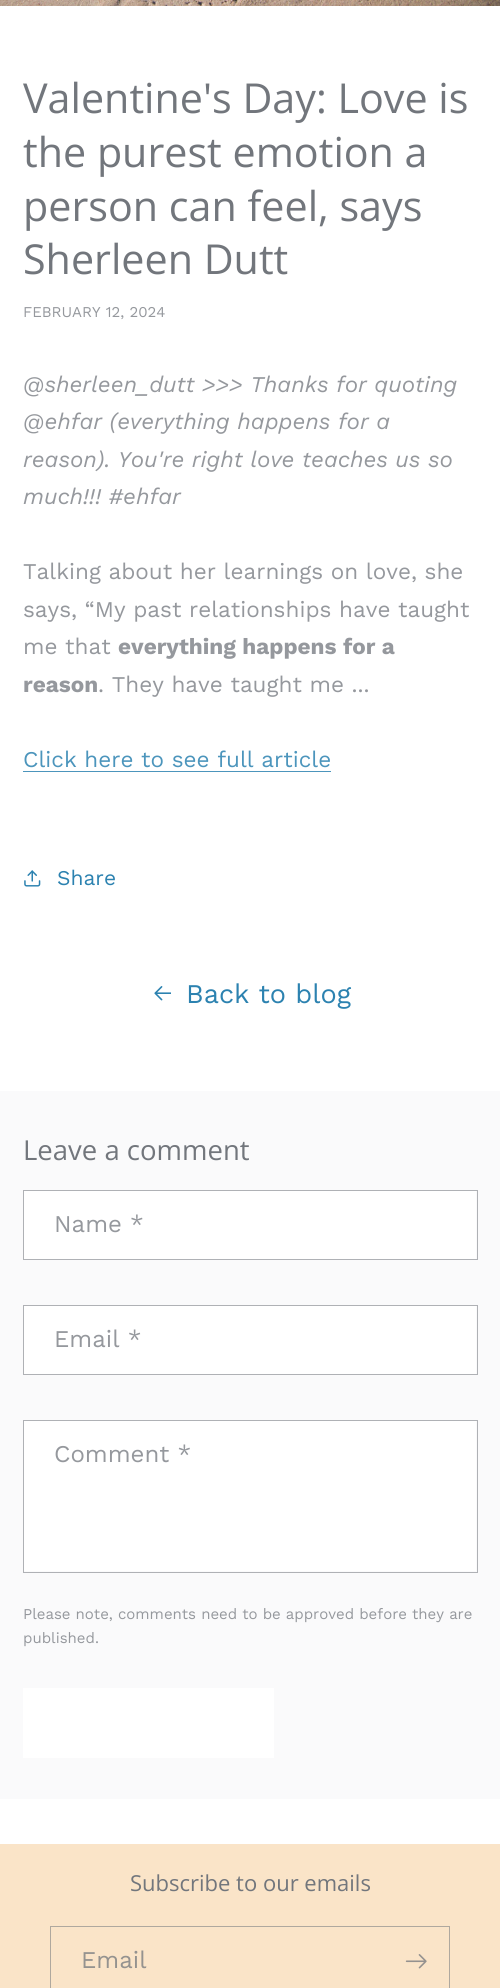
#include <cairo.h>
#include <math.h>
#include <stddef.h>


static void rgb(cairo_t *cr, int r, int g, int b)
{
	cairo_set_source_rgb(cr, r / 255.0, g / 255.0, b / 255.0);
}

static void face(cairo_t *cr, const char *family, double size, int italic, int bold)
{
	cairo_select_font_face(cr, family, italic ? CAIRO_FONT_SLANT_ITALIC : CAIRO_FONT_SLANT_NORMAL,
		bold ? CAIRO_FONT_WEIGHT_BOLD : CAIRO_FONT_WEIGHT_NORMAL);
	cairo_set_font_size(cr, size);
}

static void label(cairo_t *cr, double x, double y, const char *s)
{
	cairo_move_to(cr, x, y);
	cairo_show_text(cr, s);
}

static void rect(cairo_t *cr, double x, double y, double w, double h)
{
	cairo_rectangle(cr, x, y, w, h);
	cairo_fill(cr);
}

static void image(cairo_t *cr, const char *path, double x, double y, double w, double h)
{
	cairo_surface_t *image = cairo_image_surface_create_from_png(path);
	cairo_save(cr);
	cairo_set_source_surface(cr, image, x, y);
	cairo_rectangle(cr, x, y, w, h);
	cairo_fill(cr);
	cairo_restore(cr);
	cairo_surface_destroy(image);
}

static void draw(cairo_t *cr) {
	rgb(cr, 255, 255, 255);
	cairo_paint(cr);
	image(cr, "image0.png", 0, 0, 500, 6);
	face(cr, "Open Sans", 41.25, 0, 0);
	rgb(cr, 114, 118, 124);
	label(cr, 23, 113, "Valentine's Day: Love is");
	label(cr, 23, 167, "the purest emotion a");
	label(cr, 23, 221, "person can feel, says");
	label(cr, 23, 274, "Sherleen Dutt");
	face(cr, "Work Sans", 15, 0, 0);
	rgb(cr, 149, 152, 157);
	label(cr, 23, 317, "FEBRUARY 12, 2024");
	face(cr, "Work Sans", 22.5, 1, 0);
	label(cr, 23, 392, "@sherleen_dutt >>> Thanks for quoting");
	label(cr, 23, 429, "@ehfar (everything happens for a");
	label(cr, 23, 467, "reason). You're right love teaches us so");
	label(cr, 23, 504, "much!!! #ehfar");
	face(cr, "Work Sans", 22.5, 0, 0);
	label(cr, 23, 579, "Talking about her learnings on love, she");
	label(cr, 23, 617, "says, “My past relationships have taught");
	label(cr, 23, 654, "me that");
	face(cr, "Work Sans", 22.5, 0, 1);
	label(cr, 118, 654, "everything happens for a");
	label(cr, 23, 692, "reason");
	face(cr, "Work Sans", 22.5, 0, 0);
	label(cr, 98, 692, ". They have taught me ...");
	rgb(cr, 76, 149, 188);
	label(cr, 23, 767, "Click here to see full article");
	rect(cr, 23, 771, 308, 1);
	image(cr, "image1.png", 24, 870, 17, 17);
	face(cr, "Work Sans", 21, 0, 0);
	rgb(cr, 44, 130, 176);
	label(cr, 57, 885, "Share");
	image(cr, "image2.png", 154, 986, 17, 15);
	face(cr, "Work Sans", 27, 0, 0);
	label(cr, 186, 1003, "Back to blog");
	rgb(cr, 250, 250, 251);
	rect(cr, 0, 1091, 500, 708);
	face(cr, "Open Sans", 27.5, 0, 0);
	rgb(cr, 114, 118, 124);
	label(cr, 23, 1160, "Leave a comment");
	rgb(cr, 255, 255, 255);
	rect(cr, 24, 1191, 452, 68);
	cairo_rectangle(cr, 23.5, 1190.5, 454, 69);
	rgb(cr, 175, 177, 181);
	cairo_set_line_width(cr, 1);
	cairo_stroke(cr);
	face(cr, "Work Sans", 24, 0, 0);
	rgb(cr, 149, 152, 157);
	label(cr, 54, 1232, "Name *");
	rgb(cr, 255, 255, 255);
	rect(cr, 24, 1306, 452, 68);
	cairo_rectangle(cr, 23.5, 1305.5, 454, 69);
	rgb(cr, 175, 177, 181);
	cairo_stroke(cr);
	rgb(cr, 149, 152, 157);
	label(cr, 54, 1347, "Email *");
	rgb(cr, 255, 255, 255);
	rect(cr, 24, 1421, 452, 150);
	cairo_rectangle(cr, 23.5, 1420.5, 454, 152);
	rgb(cr, 175, 177, 181);
	cairo_stroke(cr);
	rgb(cr, 149, 152, 157);
	label(cr, 54, 1462, "Comment *");
	face(cr, "Work Sans", 15, 0, 0);
	label(cr, 23, 1619, "Please note, comments need to be approved before they are");
	label(cr, 23, 1643, "published.");
	rgb(cr, 255, 255, 255);
	rect(cr, 23, 1688, 251, 70);
	rgb(cr, 250, 228, 200);
	rect(cr, 0, 1844, 500, 144);
	face(cr, "Open Sans", 22, 0, 0);
	rgb(cr, 114, 118, 124);
	label(cr, 130, 1891, "Subscribe to our emails");
	cairo_rectangle(cr, 50.5, 1926.5, 399, 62);
	rgb(cr, 175, 168, 158);
	cairo_stroke(cr);
	face(cr, "Work Sans", 24, 0, 0);
	rgb(cr, 148, 146, 143);
	label(cr, 81, 1968, "Email");
	image(cr, "image3.png", 405, 1954, 22, 15);
}

int main(void) {
	cairo_surface_t *surface = cairo_image_surface_create(CAIRO_FORMAT_RGB24, 500, 1988);
	cairo_t *cr = cairo_create(surface);
	cairo_font_options_t *options = cairo_font_options_create();
	cairo_font_options_set_hint_metrics(options, CAIRO_HINT_METRICS_OFF);
	cairo_font_options_set_hint_style(options, CAIRO_HINT_STYLE_NONE);
	cairo_set_font_options(cr, options);
	cairo_set_miter_limit(cr, 4);
	draw(cr);
	cairo_surface_write_to_png(surface, "render.png");
	cairo_font_options_destroy(options);
	cairo_destroy(cr);
	cairo_surface_destroy(surface);
	return 0;
}
